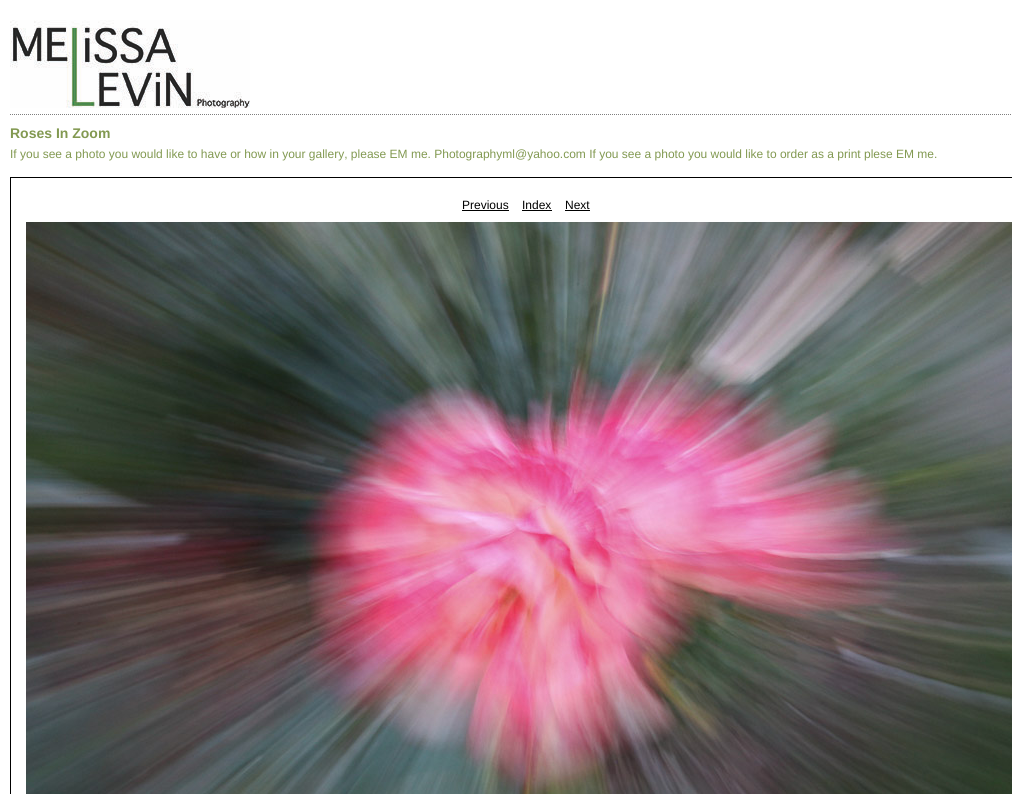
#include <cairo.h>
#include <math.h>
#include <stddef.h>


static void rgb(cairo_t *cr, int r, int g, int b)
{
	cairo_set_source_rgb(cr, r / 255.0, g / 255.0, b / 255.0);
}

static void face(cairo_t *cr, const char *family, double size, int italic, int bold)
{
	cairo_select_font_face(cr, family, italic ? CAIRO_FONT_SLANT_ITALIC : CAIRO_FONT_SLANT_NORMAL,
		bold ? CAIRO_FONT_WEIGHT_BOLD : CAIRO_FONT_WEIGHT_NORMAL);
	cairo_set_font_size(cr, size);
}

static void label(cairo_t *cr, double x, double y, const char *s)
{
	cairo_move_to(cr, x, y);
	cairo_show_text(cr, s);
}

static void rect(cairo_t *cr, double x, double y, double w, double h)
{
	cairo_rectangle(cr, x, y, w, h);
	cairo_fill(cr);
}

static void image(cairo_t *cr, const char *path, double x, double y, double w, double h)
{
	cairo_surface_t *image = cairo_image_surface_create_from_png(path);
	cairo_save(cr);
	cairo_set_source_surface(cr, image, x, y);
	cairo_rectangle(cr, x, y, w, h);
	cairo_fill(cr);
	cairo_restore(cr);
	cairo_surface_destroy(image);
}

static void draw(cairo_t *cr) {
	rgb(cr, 255, 255, 255);
	cairo_paint(cr);
	image(cr, "image0.png", 10, 20, 240, 88);
	cairo_new_path(cr);
	cairo_move_to(cr, 10, 114.5);
	cairo_line_to(cr, 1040, 114.5);
	rgb(cr, 127, 127, 127);
	cairo_set_line_width(cr, 1);
	cairo_set_dash(cr, (double[]){1, 1}, 2, 0);
	cairo_stroke(cr);
	face(cr, "Liberation Sans", 14, 0, 1);
	rgb(cr, 130, 153, 81);
	label(cr, 10, 138, "Roses In Zoom");
	face(cr, "Liberation Sans", 12, 0, 0);
	label(cr, 10, 158, "If you see a photo you would like to have or how in your gallery, please EM me. Photographyml@yahoo.com If you see a photo you would like to order as a print plese EM me.");
	cairo_rectangle(cr, 10.5, 177.5, 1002, 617);
	rgb(cr, 0, 0, 0);
	cairo_set_dash(cr, NULL, 0, 0);
	cairo_stroke(cr);
	label(cr, 462, 209, "Previous");
	rect(cr, 462, 210, 47, 1);
	label(cr, 522, 209, "Index");
	rect(cr, 522, 210, 30, 1);
	label(cr, 565, 209, "Next");
	rect(cr, 565, 210, 25, 1);
	image(cr, "image1.png", 26, 222, 986, 572);
}

int main(void) {
	cairo_surface_t *surface = cairo_image_surface_create(CAIRO_FORMAT_RGB24, 1012, 794);
	cairo_t *cr = cairo_create(surface);
	cairo_font_options_t *options = cairo_font_options_create();
	cairo_font_options_set_hint_metrics(options, CAIRO_HINT_METRICS_OFF);
	cairo_font_options_set_hint_style(options, CAIRO_HINT_STYLE_NONE);
	cairo_set_font_options(cr, options);
	cairo_set_miter_limit(cr, 4);
	draw(cr);
	cairo_surface_write_to_png(surface, "render.png");
	cairo_font_options_destroy(options);
	cairo_destroy(cr);
	cairo_surface_destroy(surface);
	return 0;
}
